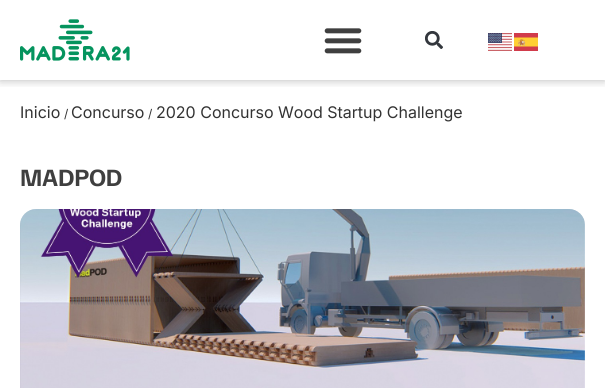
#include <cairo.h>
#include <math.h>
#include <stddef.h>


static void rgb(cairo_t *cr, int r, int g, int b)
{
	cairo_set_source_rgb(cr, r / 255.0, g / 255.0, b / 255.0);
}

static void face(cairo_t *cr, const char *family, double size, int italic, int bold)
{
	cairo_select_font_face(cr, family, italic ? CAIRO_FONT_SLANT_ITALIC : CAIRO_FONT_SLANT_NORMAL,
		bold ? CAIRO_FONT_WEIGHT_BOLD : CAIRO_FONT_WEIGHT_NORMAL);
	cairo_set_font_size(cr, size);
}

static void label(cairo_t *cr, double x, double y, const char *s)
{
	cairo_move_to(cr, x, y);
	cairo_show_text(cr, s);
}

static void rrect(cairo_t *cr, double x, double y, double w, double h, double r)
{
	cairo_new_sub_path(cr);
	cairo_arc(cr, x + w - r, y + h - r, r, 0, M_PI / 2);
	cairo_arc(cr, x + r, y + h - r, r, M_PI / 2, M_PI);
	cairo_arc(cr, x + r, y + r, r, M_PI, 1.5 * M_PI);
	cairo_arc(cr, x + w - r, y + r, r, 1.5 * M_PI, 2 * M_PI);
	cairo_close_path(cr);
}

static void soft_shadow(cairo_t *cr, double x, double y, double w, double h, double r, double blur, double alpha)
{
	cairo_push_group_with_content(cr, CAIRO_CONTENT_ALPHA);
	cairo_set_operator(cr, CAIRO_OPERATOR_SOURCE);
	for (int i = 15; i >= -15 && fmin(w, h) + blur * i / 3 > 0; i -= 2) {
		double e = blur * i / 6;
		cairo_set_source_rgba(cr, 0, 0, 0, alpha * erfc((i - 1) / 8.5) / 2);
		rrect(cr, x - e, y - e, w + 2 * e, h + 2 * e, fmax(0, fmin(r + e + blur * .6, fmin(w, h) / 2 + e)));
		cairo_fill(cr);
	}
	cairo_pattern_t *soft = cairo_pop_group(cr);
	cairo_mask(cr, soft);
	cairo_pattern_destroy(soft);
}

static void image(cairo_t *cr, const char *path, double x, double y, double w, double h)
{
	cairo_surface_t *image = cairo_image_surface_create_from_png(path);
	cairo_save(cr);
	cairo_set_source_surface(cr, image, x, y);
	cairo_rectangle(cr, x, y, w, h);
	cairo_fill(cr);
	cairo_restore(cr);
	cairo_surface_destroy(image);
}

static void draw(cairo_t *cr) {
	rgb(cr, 255, 255, 255);
	cairo_paint(cr);
	cairo_save(cr);
	cairo_rectangle(cr, 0, 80, 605, 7);
	cairo_clip(cr);
	rgb(cr, 0, 0, 0);
	soft_shadow(cr, 0, 0, 605, 80, 0, 5, 0.29);
	cairo_restore(cr);
	image(cr, "image0.png", 20, 19, 110, 42);
	image(cr, "image1.png", 324, 28, 38, 26);
	image(cr, "image2.png", 425, 31, 18, 18);
	image(cr, "image3.png", 488, 33, 24, 18);
	image(cr, "image4.png", 514, 33, 24, 18);
	face(cr, "Inter", 16, 0, 0);
	rgb(cr, 51, 51, 51);
	label(cr, 20, 118, "Inicio");
	face(cr, "Inter", 12, 0, 0);
	label(cr, 64, 118, "/");
	face(cr, "Inter", 16, 0, 0);
	label(cr, 71, 118, "Concurso");
	face(cr, "Inter", 12, 0, 0);
	label(cr, 148, 118, "/");
	face(cr, "Inter", 16, 0, 0);
	label(cr, 156, 118, "2020 Concurso Wood Startup Challenge");
	face(cr, "Familjen Grotesk", 25, 0, 1);
	rgb(cr, 63, 63, 63);
	label(cr, 20, 186, "MADPOD");
	rgb(cr, 241, 241, 241);
	rrect(cr, 20, 209, 565, 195, 16);
	cairo_fill(cr);
	image(cr, "image5.png", 20, 209, 565, 179);
}

int main(void) {
	cairo_surface_t *surface = cairo_image_surface_create(CAIRO_FORMAT_RGB24, 605, 388);
	cairo_t *cr = cairo_create(surface);
	cairo_font_options_t *options = cairo_font_options_create();
	cairo_font_options_set_hint_metrics(options, CAIRO_HINT_METRICS_OFF);
	cairo_font_options_set_hint_style(options, CAIRO_HINT_STYLE_NONE);
	cairo_set_font_options(cr, options);
	cairo_set_miter_limit(cr, 4);
	draw(cr);
	cairo_surface_write_to_png(surface, "render.png");
	cairo_font_options_destroy(options);
	cairo_destroy(cr);
	cairo_surface_destroy(surface);
	return 0;
}
